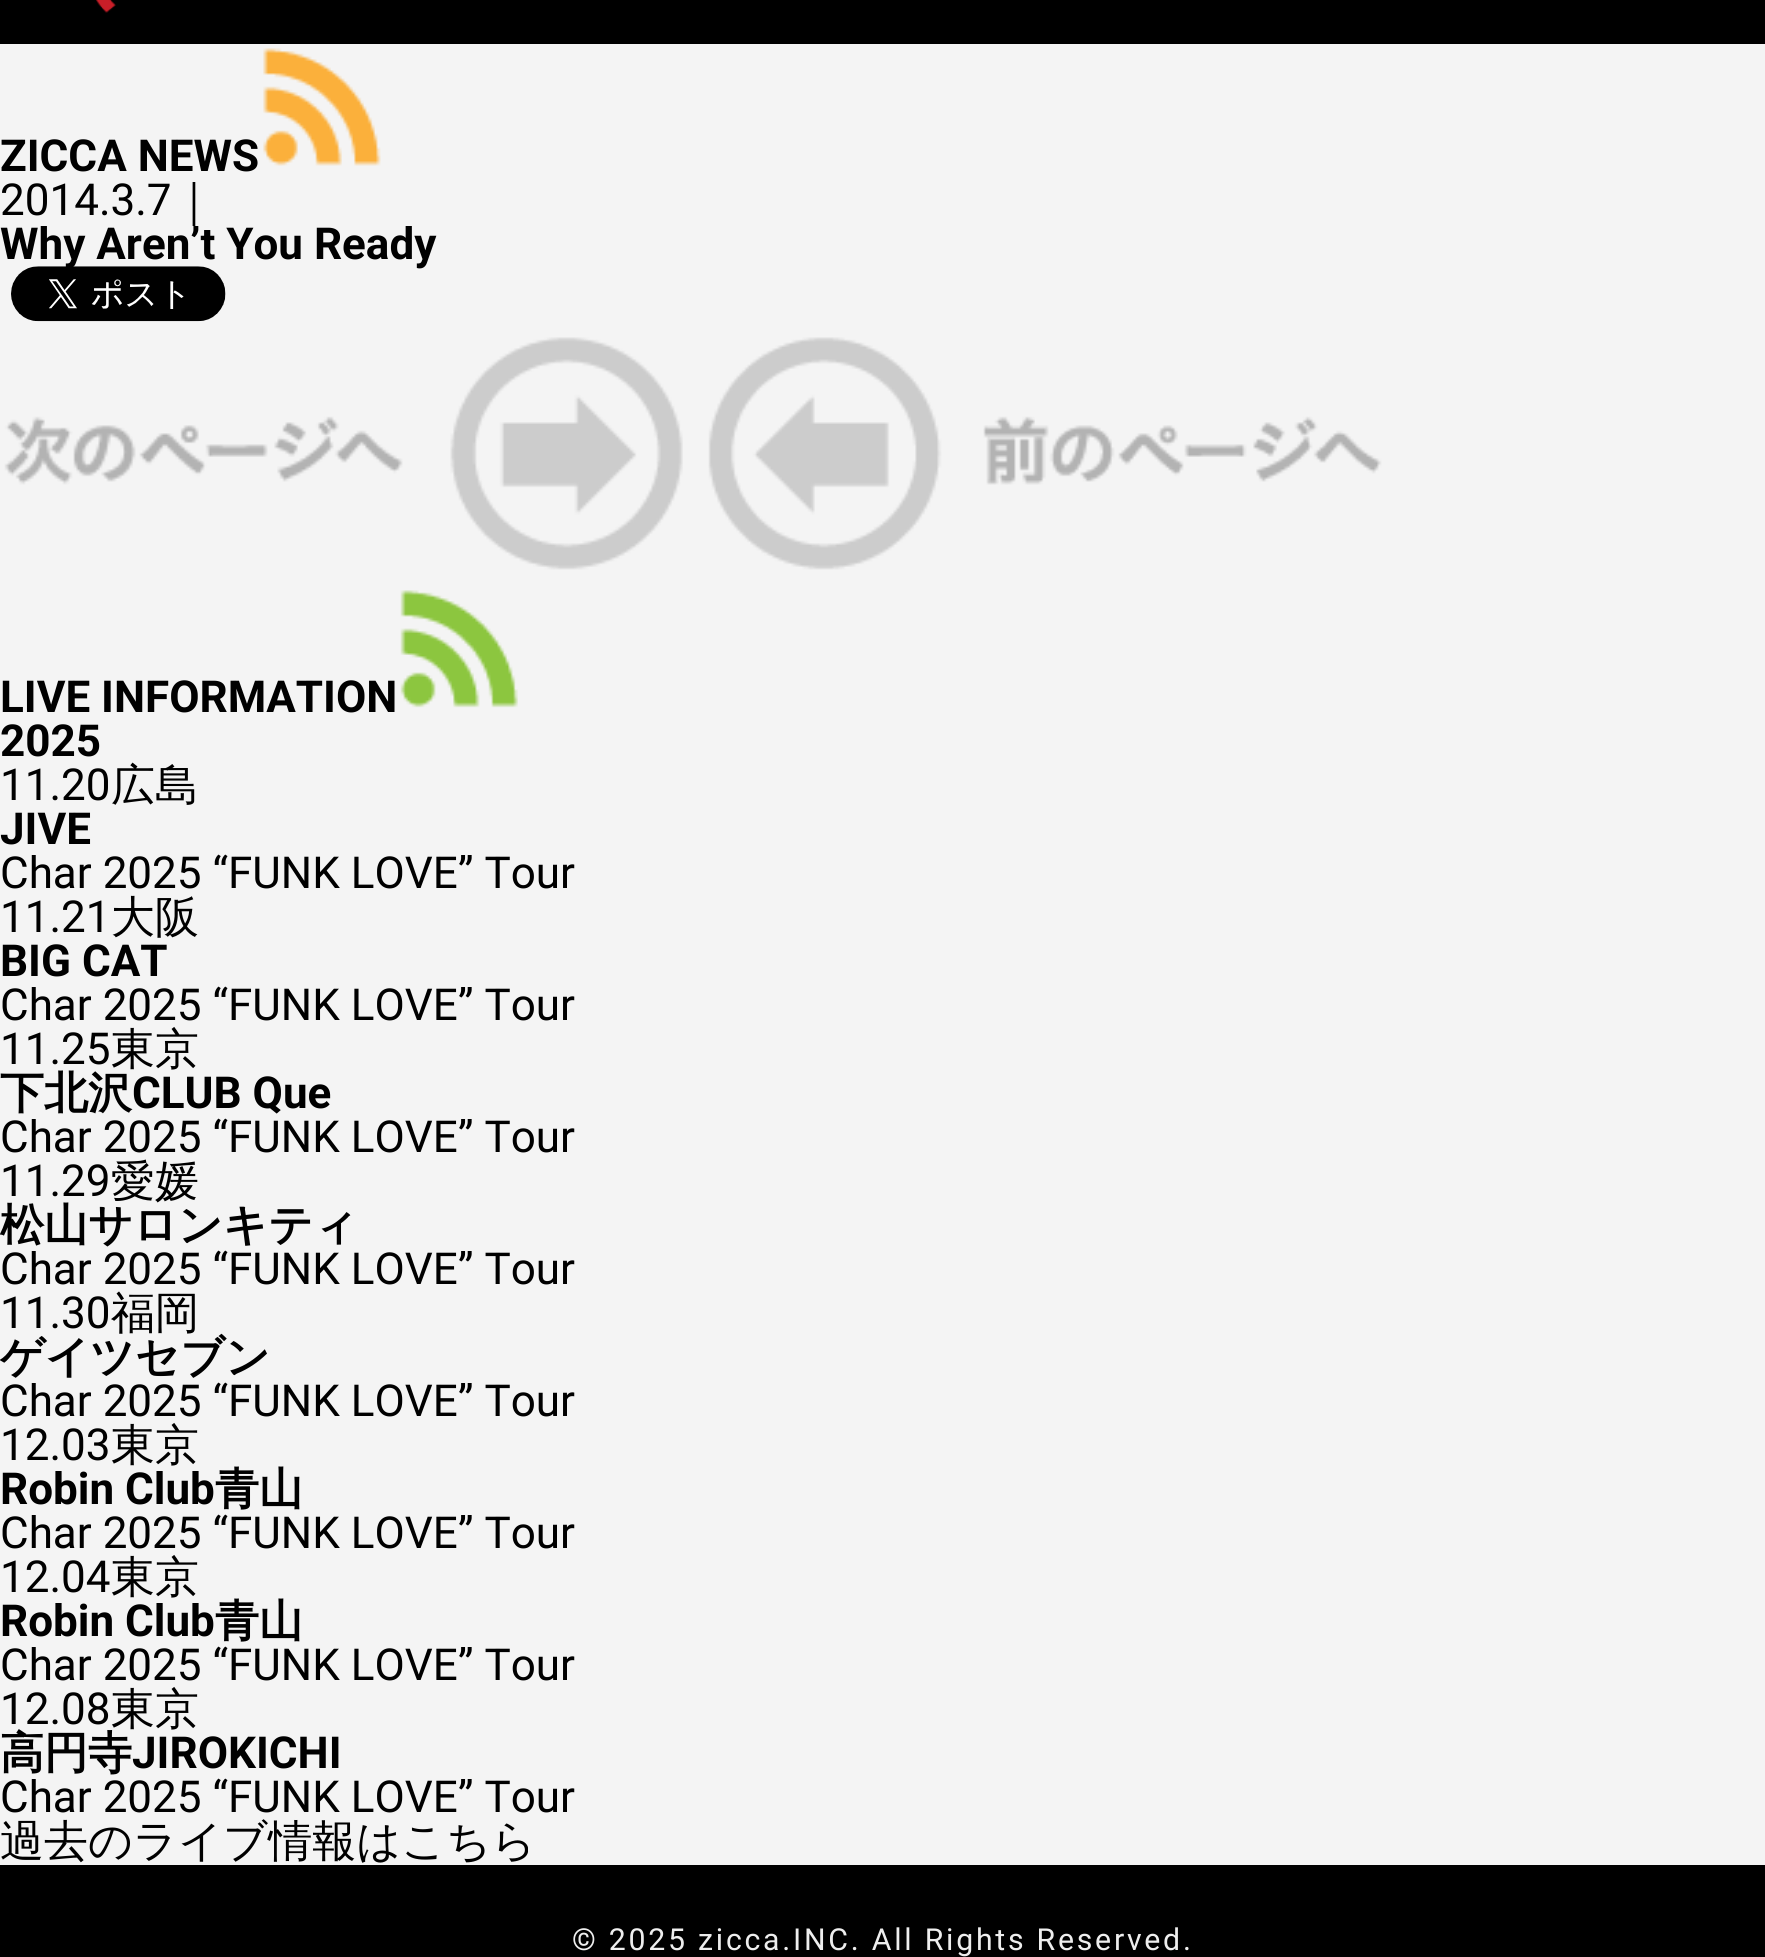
#include <cairo.h>
#include <math.h>
#include <stddef.h>


static void rgb(cairo_t *cr, int r, int g, int b)
{
	cairo_set_source_rgb(cr, r / 255.0, g / 255.0, b / 255.0);
}

static void face(cairo_t *cr, const char *family, double size, int italic, int bold)
{
	cairo_select_font_face(cr, family, italic ? CAIRO_FONT_SLANT_ITALIC : CAIRO_FONT_SLANT_NORMAL,
		bold ? CAIRO_FONT_WEIGHT_BOLD : CAIRO_FONT_WEIGHT_NORMAL);
	cairo_set_font_size(cr, size);
}

static void label(cairo_t *cr, double x, double y, const char *s)
{
	cairo_move_to(cr, x, y);
	cairo_show_text(cr, s);
}

static void tracked(cairo_t *cr, double x, double y, const char *s, double letter, double word)
{
	cairo_move_to(cr, x, y);
	while (*s) {
		char ch[5] = {0};
		int n = 0;
		do ch[n++] = *s++; while ((*s & 0xC0) == 0x80);
		cairo_show_text(cr, ch);
		cairo_rel_move_to(cr, letter + word * (*ch == ' '), 0);
	}
}

static void rect(cairo_t *cr, double x, double y, double w, double h)
{
	cairo_rectangle(cr, x, y, w, h);
	cairo_fill(cr);
}

static void image(cairo_t *cr, const char *path, double x, double y, double w, double h)
{
	cairo_surface_t *image = cairo_image_surface_create_from_png(path);
	cairo_save(cr);
	cairo_set_source_surface(cr, image, x, y);
	cairo_rectangle(cr, x, y, w, h);
	cairo_fill(cr);
	cairo_restore(cr);
	cairo_surface_destroy(image);
}

static void draw(cairo_t *cr) {
	rgb(cr, 244, 244, 244);
	cairo_paint(cr);
	rgb(cr, 0, 0, 0);
	rect(cr, 0, 0, 1765, 44);
	image(cr, "image0.png", 96, 0, 20, 13);
	face(cr, "Roboto", 44, 0, 1);
	label(cr, 0, 171, "ZICCA NEWS");
	image(cr, "image1.png", 263, 48, 118, 118);
	face(cr, "Roboto", 44, 0, 0);
	label(cr, 0, 215, "2014.3.7");
	face(cr, "WenQuanYi Zen Hei Medium", 44, 0, 0);
	label(cr, 172, 215, "｜");
	face(cr, "Roboto", 44, 0, 1);
	label(cr, 0, 259, "Why Aren’t You Ready");
	image(cr, "image2.png", 11, 266, 215, 56);
	image(cr, "image3.png", 4, 337, 679, 233);
	image(cr, "image4.png", 708, 337, 674, 233);
	label(cr, 0, 712, "LIVE INFORMATION");
	image(cr, "image5.png", 400, 590, 118, 118);
	label(cr, 0, 756, "2025");
	face(cr, "Roboto", 44, 0, 0);
	label(cr, 0, 800, "11.20");
	face(cr, "WenQuanYi Zen Hei Medium", 44, 0, 0);
	label(cr, 111, 800, "広島");
	face(cr, "Roboto", 44, 0, 1);
	label(cr, 0, 844, "JIVE");
	face(cr, "Roboto", 44, 0, 0);
	label(cr, 0, 888, "Char 2025 “FUNK LOVE” Tour");
	label(cr, 0, 932, "11.21");
	face(cr, "WenQuanYi Zen Hei Medium", 44, 0, 0);
	label(cr, 111, 932, "大阪");
	face(cr, "Roboto", 44, 0, 1);
	label(cr, 0, 976, "BIG CAT");
	face(cr, "Roboto", 44, 0, 0);
	label(cr, 0, 1020, "Char 2025 “FUNK LOVE” Tour");
	label(cr, 0, 1064, "11.25");
	face(cr, "WenQuanYi Zen Hei Medium", 44, 0, 0);
	label(cr, 111, 1064, "東京");
	face(cr, "WenQuanYi Zen Hei", 44, 0, 1);
	label(cr, 0, 1108, "下北沢");
	face(cr, "Roboto", 44, 0, 1);
	label(cr, 132, 1108, "CLUB Que");
	face(cr, "Roboto", 44, 0, 0);
	label(cr, 0, 1152, "Char 2025 “FUNK LOVE” Tour");
	label(cr, 0, 1196, "11.29");
	face(cr, "WenQuanYi Zen Hei Medium", 44, 0, 0);
	label(cr, 111, 1196, "愛媛");
	face(cr, "WenQuanYi Zen Hei", 44, 0, 1);
	label(cr, 0, 1240, "松山サロンキティ");
	face(cr, "Roboto", 44, 0, 0);
	label(cr, 0, 1284, "Char 2025 “FUNK LOVE” Tour");
	label(cr, 0, 1328, "11.30");
	face(cr, "WenQuanYi Zen Hei Medium", 44, 0, 0);
	label(cr, 111, 1328, "福岡");
	face(cr, "WenQuanYi Zen Hei", 44, 0, 1);
	label(cr, 0, 1372, "ゲイツセブン");
	face(cr, "Roboto", 44, 0, 0);
	label(cr, 0, 1416, "Char 2025 “FUNK LOVE” Tour");
	label(cr, 0, 1460, "12.03");
	face(cr, "WenQuanYi Zen Hei Medium", 44, 0, 0);
	label(cr, 111, 1460, "東京");
	face(cr, "Roboto", 44, 0, 1);
	label(cr, 0, 1504, "Robin Club");
	face(cr, "WenQuanYi Zen Hei", 44, 0, 1);
	label(cr, 215, 1504, "青山");
	face(cr, "Roboto", 44, 0, 0);
	label(cr, 0, 1548, "Char 2025 “FUNK LOVE” Tour");
	label(cr, 0, 1592, "12.04");
	face(cr, "WenQuanYi Zen Hei Medium", 44, 0, 0);
	label(cr, 111, 1592, "東京");
	face(cr, "Roboto", 44, 0, 1);
	label(cr, 0, 1636, "Robin Club");
	face(cr, "WenQuanYi Zen Hei", 44, 0, 1);
	label(cr, 215, 1636, "青山");
	face(cr, "Roboto", 44, 0, 0);
	label(cr, 0, 1680, "Char 2025 “FUNK LOVE” Tour");
	label(cr, 0, 1724, "12.08");
	face(cr, "WenQuanYi Zen Hei Medium", 44, 0, 0);
	label(cr, 111, 1724, "東京");
	face(cr, "WenQuanYi Zen Hei", 44, 0, 1);
	label(cr, 0, 1768, "高円寺");
	face(cr, "Roboto", 44, 0, 1);
	label(cr, 132, 1768, "JIROKICHI");
	face(cr, "Roboto", 44, 0, 0);
	label(cr, 0, 1812, "Char 2025 “FUNK LOVE” Tour");
	face(cr, "WenQuanYi Zen Hei Medium", 44, 0, 0);
	label(cr, 0, 1856, "過去のライブ情報はこちら");
	rect(cr, 0, 1865, 1765, 92);
	face(cr, "Roboto", 30.25, 0, 0);
	rgb(cr, 238, 238, 238);
	tracked(cr, 572, 1950, "© 2025 zicca.INC. All Rights Reserved.", 2.75, 0);
}

int main(void) {
	cairo_surface_t *surface = cairo_image_surface_create(CAIRO_FORMAT_RGB24, 1765, 1957);
	cairo_t *cr = cairo_create(surface);
	cairo_font_options_t *options = cairo_font_options_create();
	cairo_font_options_set_hint_metrics(options, CAIRO_HINT_METRICS_OFF);
	cairo_font_options_set_hint_style(options, CAIRO_HINT_STYLE_NONE);
	cairo_set_font_options(cr, options);
	cairo_set_miter_limit(cr, 4);
	draw(cr);
	cairo_surface_write_to_png(surface, "render.png");
	cairo_font_options_destroy(options);
	cairo_destroy(cr);
	cairo_surface_destroy(surface);
	return 0;
}
